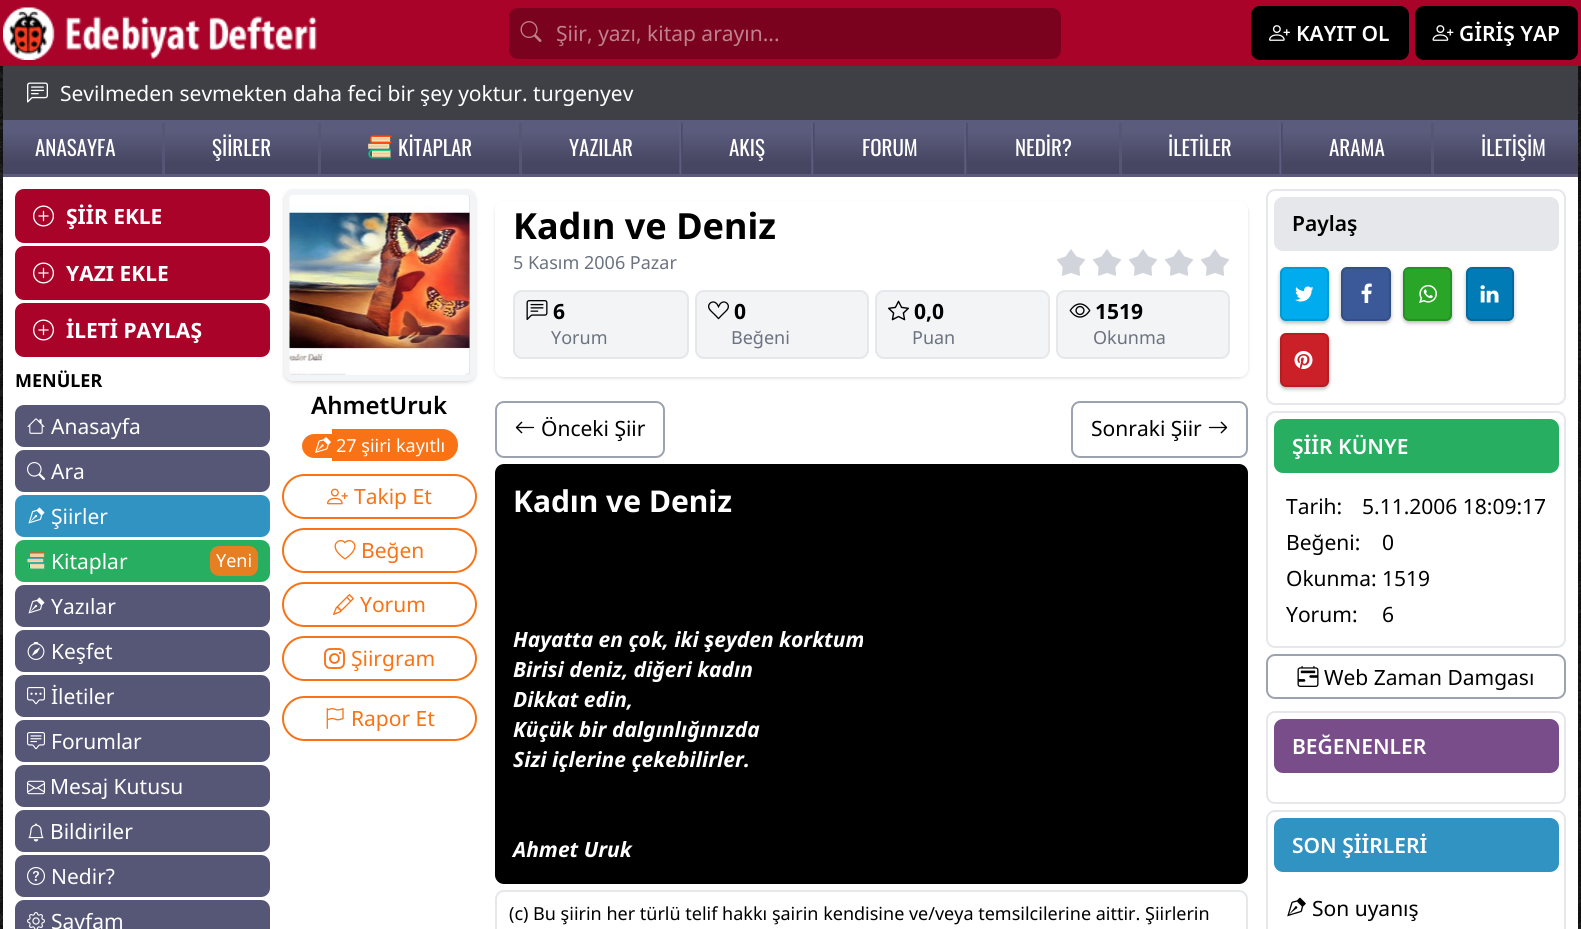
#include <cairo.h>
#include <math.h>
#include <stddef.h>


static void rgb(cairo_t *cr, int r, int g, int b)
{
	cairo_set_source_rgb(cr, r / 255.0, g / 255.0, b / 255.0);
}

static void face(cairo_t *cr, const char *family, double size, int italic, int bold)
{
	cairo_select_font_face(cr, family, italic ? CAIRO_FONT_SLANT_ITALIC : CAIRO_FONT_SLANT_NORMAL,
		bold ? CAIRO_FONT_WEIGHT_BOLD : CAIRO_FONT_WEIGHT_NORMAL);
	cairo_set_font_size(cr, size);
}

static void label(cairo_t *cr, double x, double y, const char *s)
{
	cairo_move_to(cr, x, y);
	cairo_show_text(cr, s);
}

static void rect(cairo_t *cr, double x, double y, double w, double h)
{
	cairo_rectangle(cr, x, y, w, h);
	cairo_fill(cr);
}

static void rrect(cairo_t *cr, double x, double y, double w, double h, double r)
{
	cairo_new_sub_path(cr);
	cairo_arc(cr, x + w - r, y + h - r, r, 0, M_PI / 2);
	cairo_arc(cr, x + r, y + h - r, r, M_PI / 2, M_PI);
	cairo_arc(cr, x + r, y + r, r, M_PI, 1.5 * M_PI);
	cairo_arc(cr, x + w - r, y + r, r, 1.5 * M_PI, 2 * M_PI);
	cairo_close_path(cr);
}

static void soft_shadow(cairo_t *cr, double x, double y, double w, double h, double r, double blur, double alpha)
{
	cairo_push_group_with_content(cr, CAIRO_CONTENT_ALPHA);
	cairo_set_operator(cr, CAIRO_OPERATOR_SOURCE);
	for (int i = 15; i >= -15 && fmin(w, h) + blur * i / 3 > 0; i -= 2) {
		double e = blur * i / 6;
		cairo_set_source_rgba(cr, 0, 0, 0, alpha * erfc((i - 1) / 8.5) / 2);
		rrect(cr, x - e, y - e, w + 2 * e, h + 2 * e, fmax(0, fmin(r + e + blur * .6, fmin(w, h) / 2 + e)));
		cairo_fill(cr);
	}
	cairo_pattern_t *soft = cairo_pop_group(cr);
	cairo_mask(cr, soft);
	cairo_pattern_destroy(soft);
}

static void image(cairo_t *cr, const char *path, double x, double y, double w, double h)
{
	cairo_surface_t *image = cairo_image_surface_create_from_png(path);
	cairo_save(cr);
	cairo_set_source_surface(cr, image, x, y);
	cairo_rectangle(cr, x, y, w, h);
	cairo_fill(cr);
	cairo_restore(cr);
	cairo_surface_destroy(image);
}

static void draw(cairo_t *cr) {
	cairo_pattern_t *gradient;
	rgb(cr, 255, 255, 255);
	cairo_paint(cr);
	image(cr, "image0.png", 0, 66, 1581, 863);
	rgb(cr, 169, 3, 41);
	rect(cr, 0, 0, 1581, 66);
	image(cr, "image1.png", 3, 7, 314, 53);
	rgb(cr, 123, 2, 30);
	rrect(cr, 509, 8, 552, 51, 9);
	cairo_fill(cr);
	image(cr, "image2.png", 520, 21, 22, 21);
	face(cr, "Noto Sans", 21, 0, 0);
	rgb(cr, 189, 129, 143);
	label(cr, 556, 41, "Şiir, yazı, kitap arayın...");
	rgb(cr, 0, 0, 0);
	rrect(cr, 1251, 6, 158, 54, 9);
	cairo_fill(cr);
	image(cr, "image3.png", 1269, 25, 21, 16);
	face(cr, "Noto Sans SemiBold", 21, 0, 0);
	rgb(cr, 255, 255, 255);
	label(cr, 1296, 41, "KAYIT OL");
	rgb(cr, 0, 0, 0);
	rrect(cr, 1415, 6, 163, 54, 9);
	cairo_fill(cr);
	image(cr, "image4.png", 1432, 25, 22, 16);
	rgb(cr, 255, 255, 255);
	label(cr, 1459, 41, "GİRİŞ YAP");
	rgb(cr, 63, 63, 70);
	rect(cr, 3, 66, 1575, 54);
	image(cr, "image5.png", 27, 82, 21, 21);
	face(cr, "Noto Sans", 21, 0, 0);
	rgb(cr, 255, 255, 255);
	label(cr, 60, 101, "Sevilmeden sevmekten daha feci bir şey yoktur. turgenyev");
	gradient = cairo_pattern_create_linear(791, 120, 791, 174);
	cairo_pattern_add_color_stop_rgba(gradient, 0.21, 0.357, 0.357, 0.49, 1);
	cairo_pattern_add_color_stop_rgba(gradient, 0.81, 0.275, 0.275, 0.384, 1);
	cairo_set_source(cr, gradient);
	cairo_pattern_destroy(gradient);
	rect(cr, 3, 120, 1575, 54);
	rgb(cr, 91, 91, 125);
	rect(cr, 3, 174, 1575, 3);
	face(cr, "Oswald", 21, 0, 0);
	rgb(cr, 255, 255, 255);
	label(cr, 35, 156, "ANASAYFA");
	rgb(cr, 85, 85, 118);
	rect(cr, 162, 123, 3, 51);
	rgb(cr, 255, 255, 255);
	label(cr, 212, 156, "ŞİİRLER");
	rgb(cr, 85, 85, 118);
	rect(cr, 318, 123, 3, 51);
	image(cr, "image6.png", 368, 135, 24, 24);
	rgb(cr, 255, 255, 255);
	label(cr, 398, 156, "KİTAPLAR");
	rgb(cr, 85, 85, 118);
	rect(cr, 519, 123, 3, 51);
	rgb(cr, 255, 255, 255);
	label(cr, 569, 156, "YAZILAR");
	image(cr, "image7.png", 679, 123, 4, 51);
	label(cr, 729, 156, "AKIŞ");
	image(cr, "image7.png", 811, 123, 4, 51);
	label(cr, 862, 156, "FORUM");
	image(cr, "image7.png", 964, 123, 4, 51);
	label(cr, 1015, 156, "NEDİR?");
	rgb(cr, 85, 85, 118);
	rect(cr, 1119, 123, 3, 51);
	rgb(cr, 255, 255, 255);
	label(cr, 1168, 156, "İLETİLER");
	image(cr, "image7.png", 1279, 123, 4, 51);
	label(cr, 1329, 156, "ARAMA");
	rgb(cr, 85, 85, 118);
	rect(cr, 1431, 123, 3, 51);
	rgb(cr, 255, 255, 255);
	label(cr, 1481, 156, "İLETİŞİM");
	rect(cr, 3, 177, 1575, 752);
	rgb(cr, 169, 3, 41);
	rrect(cr, 15, 189, 255, 54, 9);
	cairo_fill(cr);
	image(cr, "image8.png", 33, 205, 21, 22);
	face(cr, "Noto Sans", 21, 0, 1);
	rgb(cr, 255, 255, 255);
	label(cr, 66, 224, "ŞİİR EKLE");
	rgb(cr, 169, 3, 41);
	rrect(cr, 15, 246, 255, 54, 9);
	cairo_fill(cr);
	image(cr, "image8.png", 33, 262, 21, 22);
	rgb(cr, 255, 255, 255);
	label(cr, 66, 281, "YAZI EKLE");
	rgb(cr, 169, 3, 41);
	rrect(cr, 15, 303, 255, 54, 9);
	cairo_fill(cr);
	image(cr, "image8.png", 33, 319, 21, 22);
	rgb(cr, 255, 255, 255);
	label(cr, 66, 338, "İLETİ PAYLAŞ");
	face(cr, "Noto Sans", 18, 0, 1);
	rgb(cr, 0, 0, 0);
	label(cr, 15, 387, "MENÜLER");
	rgb(cr, 86, 86, 119);
	rrect(cr, 15, 405, 255, 42, 9);
	cairo_fill(cr);
	image(cr, "image9.png", 27, 418, 18, 16);
	face(cr, "Noto Sans", 21, 0, 0);
	rgb(cr, 255, 255, 255);
	label(cr, 51, 434, "Anasayfa");
	rgb(cr, 86, 86, 119);
	rrect(cr, 15, 450, 255, 42, 9);
	cairo_fill(cr);
	image(cr, "image10.png", 27, 462, 18, 18);
	rgb(cr, 255, 255, 255);
	label(cr, 51, 479, "Ara");
	rgb(cr, 48, 147, 194);
	rrect(cr, 15, 495, 255, 42, 9);
	cairo_fill(cr);
	image(cr, "image11.png", 28, 507, 17, 17);
	rgb(cr, 255, 255, 255);
	label(cr, 51, 524, "Şiirler");
	rgb(cr, 39, 174, 96);
	rrect(cr, 15, 540, 255, 42, 9);
	cairo_fill(cr);
	image(cr, "image12.png", 27, 552, 18, 18);
	rgb(cr, 255, 255, 255);
	label(cr, 51, 569, "Kitaplar");
	rgb(cr, 230, 126, 34);
	rrect(cr, 210, 546, 48, 30, 9);
	cairo_fill(cr);
	face(cr, "Noto Sans", 18, 0, 0);
	rgb(cr, 255, 255, 255);
	label(cr, 216, 567, "Yeni");
	rgb(cr, 86, 86, 119);
	rrect(cr, 15, 585, 255, 42, 9);
	cairo_fill(cr);
	image(cr, "image13.png", 28, 597, 17, 17);
	face(cr, "Noto Sans", 21, 0, 0);
	rgb(cr, 255, 255, 255);
	label(cr, 51, 614, "Yazılar");
	rgb(cr, 86, 86, 119);
	rrect(cr, 15, 630, 255, 42, 9);
	cairo_fill(cr);
	image(cr, "image14.png", 27, 642, 18, 18);
	rgb(cr, 255, 255, 255);
	label(cr, 51, 659, "Keşfet");
	rgb(cr, 86, 86, 119);
	rrect(cr, 15, 675, 255, 42, 9);
	cairo_fill(cr);
	image(cr, "image15.png", 27, 687, 18, 18);
	rgb(cr, 255, 255, 255);
	label(cr, 51, 704, "İletiler");
	rgb(cr, 86, 86, 119);
	rrect(cr, 15, 720, 255, 42, 9);
	cairo_fill(cr);
	image(cr, "image16.png", 27, 732, 18, 18);
	rgb(cr, 255, 255, 255);
	label(cr, 51, 749, "Forumlar");
	rgb(cr, 86, 86, 119);
	rrect(cr, 15, 765, 255, 42, 9);
	cairo_fill(cr);
	image(cr, "image17.png", 27, 780, 18, 15);
	rgb(cr, 255, 255, 255);
	label(cr, 50, 794, "Mesaj Kutusu");
	rgb(cr, 86, 86, 119);
	rrect(cr, 15, 810, 255, 42, 9);
	cairo_fill(cr);
	image(cr, "image18.png", 28, 823, 16, 19);
	rgb(cr, 255, 255, 255);
	label(cr, 50, 839, "Bildiriler");
	rgb(cr, 86, 86, 119);
	rrect(cr, 15, 855, 255, 42, 9);
	cairo_fill(cr);
	image(cr, "image19.png", 27, 867, 18, 18);
	rgb(cr, 255, 255, 255);
	label(cr, 51, 884, "Nedir?");
	rgb(cr, 86, 86, 119);
	rrect(cr, 15, 900, 255, 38, 9);
	cairo_fill(cr);
	image(cr, "image20.png", 27, 912, 18, 17);
	rgb(cr, 255, 255, 255);
	label(cr, 51, 929, "Sayfam");
	rgb(cr, 0, 0, 0);
	soft_shadow(cr, 285, 192, 189, 189, 8, 1.5, 0.1);
	soft_shadow(cr, 284, 191, 192, 192, 9, 2, 0.1);
	rrect(cr, 287, 192, 186, 186, 6);
	rgb(cr, 243, 244, 246);
	cairo_set_line_width(cr, 6);
	cairo_stroke(cr);
	image(cr, "image21.png", 289, 195, 181, 180);
	face(cr, "Noto Sans SemiBold", 24, 0, 0);
	rgb(cr, 0, 0, 0);
	label(cr, 311, 414, "AhmetUruk");
	rgb(cr, 249, 115, 22);
	cairo_new_path(cr);
	cairo_move_to(cr, 314, 434);
	cairo_line_to(cr, 332, 434);
	cairo_line_to(cr, 332, 458);
	cairo_line_to(cr, 314, 458);
	cairo_curve_to(cr, 307.5, 458, 302, 452.5, 302, 446);
	cairo_curve_to(cr, 302, 439.5, 307.5, 434, 314, 434);
	cairo_close_path(cr);
	cairo_fill(cr);
	cairo_new_path(cr);
	cairo_move_to(cr, 332, 429);
	cairo_line_to(cr, 442, 429);
	cairo_curve_to(cr, 451, 429, 458, 436, 458, 445);
	cairo_curve_to(cr, 458, 454, 451, 461, 442, 461);
	cairo_line_to(cr, 332, 461);
	cairo_close_path(cr);
	cairo_fill(cr);
	image(cr, "image22.png", 315, 437, 16, 16);
	face(cr, "Noto Sans", 18, 0, 0);
	rgb(cr, 255, 255, 255);
	label(cr, 336, 452, "27 şiiri kayıtlı");
	rrect(cr, 283, 475, 193, 43, 21.5);
	rgb(cr, 249, 115, 22);
	cairo_set_line_width(cr, 2);
	cairo_stroke(cr);
	image(cr, "image23.png", 327, 488, 21, 17);
	face(cr, "Noto Sans", 21, 0, 0);
	label(cr, 354, 504, "Takip Et");
	rrect(cr, 283, 529, 193, 43, 21.5);
	cairo_stroke(cr);
	image(cr, "image24.png", 334, 540, 22, 20);
	label(cr, 361, 558, "Beğen");
	rrect(cr, 283, 583, 193, 43, 21.5);
	cairo_stroke(cr);
	image(cr, "image25.png", 333, 594, 21, 21);
	label(cr, 360, 612, "Yorum");
	rrect(cr, 283, 637, 193, 43, 21.5);
	cairo_stroke(cr);
	image(cr, "image26.png", 324, 648, 21, 21);
	label(cr, 351, 666, "Şiirgram");
	rrect(cr, 283, 697, 193, 43, 21.5);
	cairo_stroke(cr);
	image(cr, "image27.png", 326, 708, 18, 21);
	label(cr, 351, 726, "Rapor Et");
	cairo_save(cr);
	cairo_set_fill_rule(cr, CAIRO_FILL_RULE_EVEN_ODD);
	cairo_new_path(cr);
	cairo_move_to(cr, 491, 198);
	cairo_line_to(cr, 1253, 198);
	cairo_line_to(cr, 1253, 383);
	cairo_line_to(cr, 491, 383);
	cairo_close_path(cr);
	cairo_move_to(cr, 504, 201);
	cairo_line_to(cr, 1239, 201);
	cairo_curve_to(cr, 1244, 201, 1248, 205, 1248, 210);
	cairo_line_to(cr, 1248, 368);
	cairo_curve_to(cr, 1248, 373, 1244, 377, 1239, 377);
	cairo_line_to(cr, 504, 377);
	cairo_curve_to(cr, 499, 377, 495, 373, 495, 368);
	cairo_line_to(cr, 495, 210);
	cairo_curve_to(cr, 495, 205, 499, 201, 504, 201);
	cairo_close_path(cr);
	cairo_clip(cr);
	rgb(cr, 0, 0, 0);
	soft_shadow(cr, 497, 204, 750, 173, 8, 1.5, 0.1);
	cairo_restore(cr);
	cairo_save(cr);
	cairo_set_fill_rule(cr, CAIRO_FILL_RULE_EVEN_ODD);
	cairo_new_path(cr);
	cairo_move_to(cr, 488, 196);
	cairo_line_to(cr, 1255, 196);
	cairo_line_to(cr, 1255, 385);
	cairo_line_to(cr, 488, 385);
	cairo_close_path(cr);
	cairo_move_to(cr, 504, 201);
	cairo_line_to(cr, 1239, 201);
	cairo_curve_to(cr, 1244, 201, 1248, 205, 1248, 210);
	cairo_line_to(cr, 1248, 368);
	cairo_curve_to(cr, 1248, 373, 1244, 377, 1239, 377);
	cairo_line_to(cr, 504, 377);
	cairo_curve_to(cr, 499, 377, 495, 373, 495, 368);
	cairo_line_to(cr, 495, 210);
	cairo_curve_to(cr, 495, 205, 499, 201, 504, 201);
	cairo_close_path(cr);
	cairo_clip(cr);
	rgb(cr, 0, 0, 0);
	soft_shadow(cr, 495, 203, 753, 175, 9, 2, 0.1);
	cairo_restore(cr);
	face(cr, "Noto Sans", 36, 0, 1);
	rgb(cr, 0, 0, 0);
	label(cr, 513, 239, "Kadın ve Deniz");
	face(cr, "Noto Sans", 18, 0, 0);
	rgb(cr, 107, 114, 128);
	label(cr, 513, 269, "5 Kasım 2006 Pazar");
	rgb(cr, 209, 213, 219);
	cairo_new_path(cr);
	cairo_move_to(cr, 1071, 249);
	cairo_line_to(cr, 1076.5, 256.5);
	cairo_line_to(cr, 1085.5, 259.5);
	cairo_line_to(cr, 1079.5, 267);
	cairo_line_to(cr, 1080, 276);
	cairo_line_to(cr, 1071, 273);
	cairo_line_to(cr, 1062, 276);
	cairo_line_to(cr, 1062.5, 267);
	cairo_line_to(cr, 1056.5, 259.5);
	cairo_line_to(cr, 1065.5, 256.5);
	cairo_close_path(cr);
	cairo_fill(cr);
	cairo_new_path(cr);
	cairo_move_to(cr, 1107, 249);
	cairo_line_to(cr, 1112.5, 256.5);
	cairo_line_to(cr, 1121.5, 259.5);
	cairo_line_to(cr, 1115.5, 267);
	cairo_line_to(cr, 1116, 276);
	cairo_line_to(cr, 1107, 273);
	cairo_line_to(cr, 1098, 276);
	cairo_line_to(cr, 1098.5, 267);
	cairo_line_to(cr, 1092.5, 259.5);
	cairo_line_to(cr, 1101.5, 256.5);
	cairo_close_path(cr);
	cairo_fill(cr);
	cairo_new_path(cr);
	cairo_move_to(cr, 1143, 249);
	cairo_line_to(cr, 1148.5, 256.5);
	cairo_line_to(cr, 1157.5, 259.5);
	cairo_line_to(cr, 1151.5, 267);
	cairo_line_to(cr, 1152, 276);
	cairo_line_to(cr, 1143, 273);
	cairo_line_to(cr, 1134, 276);
	cairo_line_to(cr, 1134.5, 267);
	cairo_line_to(cr, 1128.5, 259.5);
	cairo_line_to(cr, 1137.5, 256.5);
	cairo_close_path(cr);
	cairo_fill(cr);
	cairo_new_path(cr);
	cairo_move_to(cr, 1179, 249);
	cairo_line_to(cr, 1184.5, 256.5);
	cairo_line_to(cr, 1193.5, 259.5);
	cairo_line_to(cr, 1187.5, 267);
	cairo_line_to(cr, 1188, 276);
	cairo_line_to(cr, 1179, 273);
	cairo_line_to(cr, 1170, 276);
	cairo_line_to(cr, 1170.5, 267);
	cairo_line_to(cr, 1164.5, 259.5);
	cairo_line_to(cr, 1173.5, 256.5);
	cairo_close_path(cr);
	cairo_fill(cr);
	cairo_new_path(cr);
	cairo_move_to(cr, 1215, 249);
	cairo_line_to(cr, 1220.5, 256.5);
	cairo_line_to(cr, 1229.5, 259.5);
	cairo_line_to(cr, 1223.5, 267);
	cairo_line_to(cr, 1224, 276);
	cairo_line_to(cr, 1215, 273);
	cairo_line_to(cr, 1206, 276);
	cairo_line_to(cr, 1206.5, 267);
	cairo_line_to(cr, 1200.5, 259.5);
	cairo_line_to(cr, 1209.5, 256.5);
	cairo_close_path(cr);
	cairo_fill(cr);
	rgb(cr, 243, 244, 246);
	rrect(cr, 514, 291, 174, 67, 8);
	cairo_fill_preserve(cr);
	rgb(cr, 229, 231, 235);
	cairo_stroke(cr);
	image(cr, "image28.png", 526, 300, 22, 20);
	face(cr, "Noto Sans", 21, 0, 1);
	rgb(cr, 0, 0, 0);
	label(cr, 553, 319, "6");
	face(cr, "Noto Sans", 18, 0, 0);
	rgb(cr, 107, 114, 128);
	label(cr, 551, 344, "Yorum");
	rgb(cr, 243, 244, 246);
	rrect(cr, 696, 291, 172, 67, 8);
	cairo_fill_preserve(cr);
	rgb(cr, 229, 231, 235);
	cairo_stroke(cr);
	image(cr, "image29.png", 708, 301, 21, 19);
	face(cr, "Noto Sans", 21, 0, 1);
	rgb(cr, 0, 0, 0);
	label(cr, 734, 319, "0");
	face(cr, "Noto Sans", 18, 0, 0);
	rgb(cr, 107, 114, 128);
	label(cr, 731, 344, "Beğeni");
	rgb(cr, 243, 244, 246);
	rrect(cr, 876, 291, 173, 67, 8);
	cairo_fill_preserve(cr);
	rgb(cr, 229, 231, 235);
	cairo_stroke(cr);
	image(cr, "image30.png", 888, 300, 21, 21);
	face(cr, "Noto Sans", 21, 0, 1);
	rgb(cr, 0, 0, 0);
	label(cr, 914, 319, "0,0");
	face(cr, "Noto Sans", 18, 0, 0);
	rgb(cr, 107, 114, 128);
	label(cr, 912, 344, "Puan");
	rgb(cr, 243, 244, 246);
	rrect(cr, 1057, 291, 172, 67, 8);
	cairo_fill_preserve(cr);
	rgb(cr, 229, 231, 235);
	cairo_stroke(cr);
	image(cr, "image31.png", 1069, 303, 22, 15);
	face(cr, "Noto Sans", 21, 0, 1);
	rgb(cr, 0, 0, 0);
	label(cr, 1095, 319, "1519");
	face(cr, "Noto Sans", 18, 0, 0);
	rgb(cr, 107, 114, 128);
	label(cr, 1093, 344, "Okunma");
	rrect(cr, 496, 402, 168, 55, 8);
	rgb(cr, 156, 163, 175);
	cairo_stroke(cr);
	image(cr, "image32.png", 515, 421, 20, 13);
	face(cr, "Noto Sans", 21, 0, 0);
	rgb(cr, 0, 0, 0);
	label(cr, 541, 436, "Önceki Şiir");
	rrect(cr, 1072, 402, 175, 55, 8);
	rgb(cr, 156, 163, 175);
	cairo_stroke(cr);
	rgb(cr, 0, 0, 0);
	label(cr, 1091, 436, "Sonraki Şiir");
	image(cr, "image33.png", 1208, 421, 20, 13);
	rrect(cr, 495, 464, 753, 420, 9);
	cairo_fill(cr);
	face(cr, "Noto Sans", 30, 0, 1);
	rgb(cr, 255, 255, 255);
	label(cr, 513, 512, "Kadın ve Deniz");
	face(cr, "Noto Sans", 21, 1, 1);
	label(cr, 513, 647, "Hayatta en çok, iki şeyden korktum");
	label(cr, 513, 677, "Birisi deniz, diğeri kadın");
	label(cr, 513, 707, "Dikkat edin,");
	label(cr, 513, 737, "Küçük bir dalgınlığınızda");
	label(cr, 513, 767, "Sizi içlerine çekebilirler.");
	label(cr, 513, 857, "Ahmet Uruk");
	rrect(cr, 496, 891, 751, 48, 8);
	rgb(cr, 229, 231, 235);
	cairo_stroke(cr);
	face(cr, "Noto Sans", 18, 0, 0);
	rgb(cr, 0, 0, 0);
	label(cr, 509, 920, "(c) Bu şiirin her türlü telif hakkı şairin kendisine ve/veya temsilcilerine aittir. Şiirlerin");
	rrect(cr, 1267, 190, 298, 214, 8);
	rgb(cr, 229, 231, 235);
	cairo_stroke(cr);
	rrect(cr, 1274, 197, 285, 54, 9);
	cairo_fill(cr);
	face(cr, "Noto Sans SemiBold", 21, 0, 0);
	rgb(cr, 0, 0, 0);
	label(cr, 1292, 231, "Paylaş");
	rgb(cr, 0, 0, 0);
	soft_shadow(cr, 1280, 269, 49, 54, 6, 2, 0.15);
	soft_shadow(cr, 1280, 269, 49, 54, 6, 2, 0.15);
	rgb(cr, 0, 172, 237);
	rrect(cr, 1281, 268, 47, 52, 5);
	cairo_fill_preserve(cr);
	rgb(cr, 0, 153, 212);
	cairo_stroke(cr);
	image(cr, "image34.png", 1295, 286, 19, 16);
	rgb(cr, 0, 0, 0);
	soft_shadow(cr, 1341, 269, 50, 54, 6, 2, 0.15);
	soft_shadow(cr, 1341, 269, 50, 54, 6, 2, 0.15);
	rgb(cr, 59, 89, 152);
	rrect(cr, 1342, 268, 48, 52, 5);
	cairo_fill_preserve(cr);
	rgb(cr, 52, 78, 134);
	cairo_stroke(cr);
	image(cr, "image35.png", 1361, 283, 11, 20);
	rgb(cr, 0, 0, 0);
	soft_shadow(cr, 1403, 269, 49, 54, 6, 2, 0.15);
	soft_shadow(cr, 1403, 269, 49, 54, 6, 2, 0.15);
	rgb(cr, 41, 166, 40);
	rrect(cr, 1404, 268, 47, 52, 5);
	cairo_fill_preserve(cr);
	rgb(cr, 36, 145, 35);
	cairo_stroke(cr);
	image(cr, "image36.png", 1419, 284, 18, 19);
	rgb(cr, 0, 0, 0);
	soft_shadow(cr, 1466, 269, 48, 54, 6, 2, 0.15);
	soft_shadow(cr, 1466, 269, 48, 54, 6, 2, 0.15);
	rgb(cr, 0, 123, 182);
	rrect(cr, 1467, 268, 46, 52, 5);
	cairo_fill_preserve(cr);
	rgb(cr, 0, 106, 157);
	cairo_stroke(cr);
	image(cr, "image37.png", 1480, 285, 19, 18);
	rgb(cr, 0, 0, 0);
	soft_shadow(cr, 1280, 335, 49, 54, 6, 2, 0.15);
	soft_shadow(cr, 1280, 335, 49, 54, 6, 2, 0.15);
	rgb(cr, 203, 32, 39);
	rrect(cr, 1281, 334, 47, 52, 5);
	cairo_fill_preserve(cr);
	rgb(cr, 181, 29, 35);
	cairo_stroke(cr);
	image(cr, "image38.png", 1294, 351, 19, 18);
	rrect(cr, 1267, 412, 298, 235, 8);
	rgb(cr, 229, 231, 235);
	cairo_stroke(cr);
	rgb(cr, 39, 174, 96);
	rrect(cr, 1274, 419, 285, 54, 9);
	cairo_fill(cr);
	rgb(cr, 255, 255, 255);
	label(cr, 1292, 454, "ŞİİR KÜNYE");
	face(cr, "Noto Sans", 21, 0, 0);
	rgb(cr, 0, 0, 0);
	label(cr, 1286, 514, "Tarih:");
	label(cr, 1362, 514, "5.11.2006 18:09:17");
	label(cr, 1286, 550, "Beğeni:");
	label(cr, 1382, 550, "0");
	label(cr, 1286, 586, "Okunma: 1519");
	label(cr, 1286, 622, "Yorum:");
	label(cr, 1382, 622, "6");
	rrect(cr, 1267, 655, 298, 43, 8);
	rgb(cr, 156, 163, 175);
	cairo_stroke(cr);
	image(cr, "image39.png", 1297, 666, 22, 21);
	rgb(cr, 0, 0, 0);
	label(cr, 1324, 685, "Web Zaman Damgası");
	rrect(cr, 1267, 712, 298, 91, 8);
	rgb(cr, 229, 231, 235);
	cairo_stroke(cr);
	rgb(cr, 121, 76, 138);
	rrect(cr, 1274, 719, 285, 54, 9);
	cairo_fill(cr);
	face(cr, "Noto Sans SemiBold", 21, 0, 0);
	rgb(cr, 255, 255, 255);
	label(cr, 1292, 754, "BEĞENENLER");
	rrect(cr, 1267, 811, 298, 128, 8);
	rgb(cr, 229, 231, 235);
	cairo_stroke(cr);
	rgb(cr, 48, 147, 194);
	rrect(cr, 1274, 818, 285, 54, 9);
	cairo_fill(cr);
	rgb(cr, 255, 255, 255);
	label(cr, 1292, 853, "SON ŞİİRLERİ");
	image(cr, "image40.png", 1287, 897, 19, 20);
	face(cr, "Noto Sans", 21, 0, 0);
	rgb(cr, 0, 0, 0);
	label(cr, 1312, 916, "Son uyanış");
}

int main(void) {
	cairo_surface_t *surface = cairo_image_surface_create(CAIRO_FORMAT_RGB24, 1581, 929);
	cairo_t *cr = cairo_create(surface);
	cairo_font_options_t *options = cairo_font_options_create();
	cairo_font_options_set_hint_metrics(options, CAIRO_HINT_METRICS_OFF);
	cairo_font_options_set_hint_style(options, CAIRO_HINT_STYLE_NONE);
	cairo_set_font_options(cr, options);
	cairo_set_miter_limit(cr, 4);
	draw(cr);
	cairo_surface_write_to_png(surface, "render.png");
	cairo_font_options_destroy(options);
	cairo_destroy(cr);
	cairo_surface_destroy(surface);
	return 0;
}
